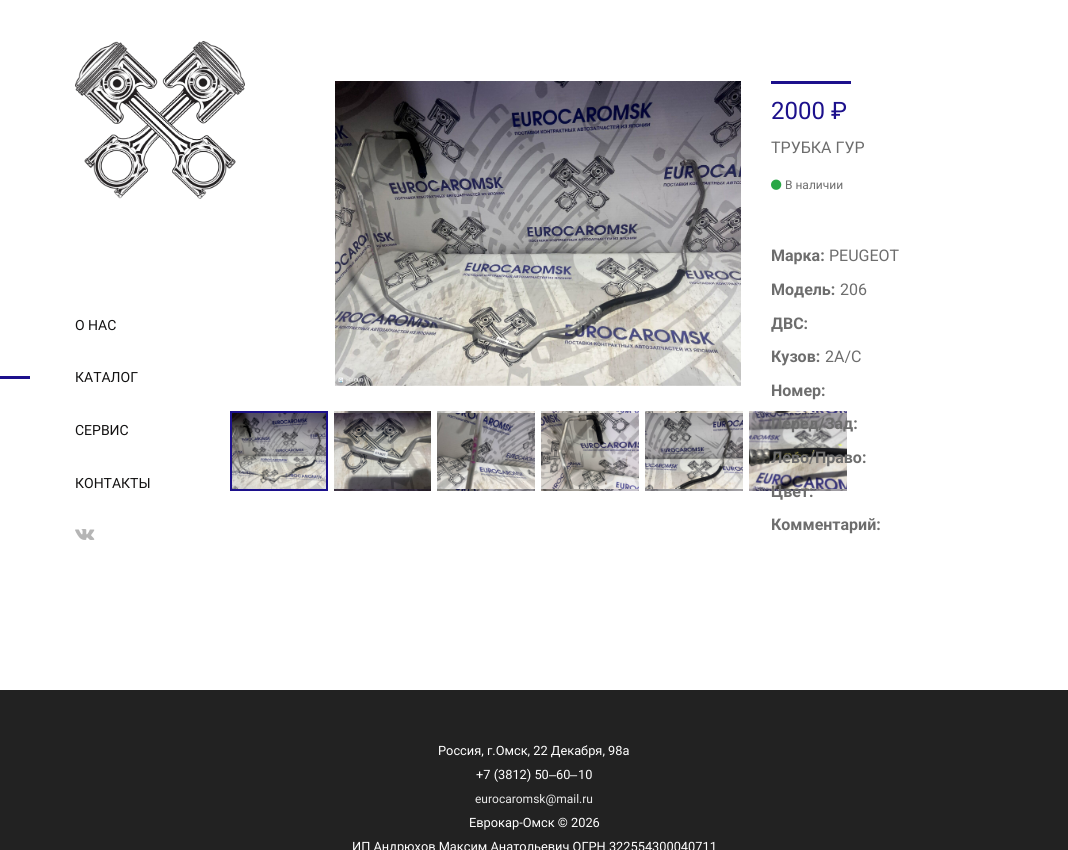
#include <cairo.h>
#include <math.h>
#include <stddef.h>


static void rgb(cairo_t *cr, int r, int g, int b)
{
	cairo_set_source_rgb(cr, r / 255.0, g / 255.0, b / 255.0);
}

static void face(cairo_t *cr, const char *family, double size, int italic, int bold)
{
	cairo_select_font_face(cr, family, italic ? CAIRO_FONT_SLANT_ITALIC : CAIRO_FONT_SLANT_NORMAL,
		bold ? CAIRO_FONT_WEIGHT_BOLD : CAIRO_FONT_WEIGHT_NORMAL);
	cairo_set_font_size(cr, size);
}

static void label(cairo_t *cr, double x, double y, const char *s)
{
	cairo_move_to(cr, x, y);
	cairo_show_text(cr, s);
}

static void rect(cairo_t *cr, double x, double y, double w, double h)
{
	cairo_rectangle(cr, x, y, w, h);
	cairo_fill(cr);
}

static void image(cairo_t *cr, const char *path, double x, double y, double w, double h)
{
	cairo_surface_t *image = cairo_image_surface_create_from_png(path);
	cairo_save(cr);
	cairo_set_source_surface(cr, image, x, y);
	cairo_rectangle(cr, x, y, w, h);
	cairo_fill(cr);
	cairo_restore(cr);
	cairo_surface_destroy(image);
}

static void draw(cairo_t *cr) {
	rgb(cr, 255, 255, 255);
	cairo_paint(cr);
	image(cr, "image0.png", 75, 41, 170, 158);
	face(cr, "Roboto", 14, 0, 0);
	rgb(cr, 19, 18, 18);
	label(cr, 75, 330, "О НАС");
	rgb(cr, 28, 16, 140);
	rect(cr, 0, 376, 30, 3);
	rgb(cr, 19, 18, 18);
	label(cr, 75, 382, "КАТАЛОГ");
	label(cr, 75, 435, "СЕРВИС");
	label(cr, 75, 488, "КОНТАКТЫ");
	image(cr, "image1.png", 75, 529, 20, 11);
	image(cr, "image2.png", 335, 81, 406, 305);
	image(cr, "image3.png", 232, 413, 94, 76);
	cairo_rectangle(cr, 231, 412, 96, 78);
	rgb(cr, 28, 16, 140);
	cairo_stroke(cr);
	image(cr, "image4.png", 334, 411, 97, 80);
	image(cr, "image5.png", 437, 411, 98, 80);
	image(cr, "image6.png", 541, 411, 98, 80);
	image(cr, "image7.png", 645, 411, 98, 80);
	image(cr, "image8.png", 749, 411, 98, 80);
	rect(cr, 771, 81, 80, 3);
	face(cr, "Roboto", 24, 0, 0);
	label(cr, 771, 119, "2000 ₽");
	face(cr, "Roboto", 16, 0, 0);
	rgb(cr, 109, 109, 109);
	label(cr, 771, 153, "ТРУБКА ГУР");
	image(cr, "image9.png", 771, 179, 11, 11);
	face(cr, "Roboto", 12, 0, 0);
	label(cr, 785, 189, "В наличии");
	face(cr, "Roboto", 16, 0, 1);
	label(cr, 771, 261, "Марка:");
	face(cr, "Roboto", 16, 0, 0);
	label(cr, 829, 261, "PEUGEOT");
	face(cr, "Roboto", 16, 0, 1);
	label(cr, 771, 295, "Модель:");
	face(cr, "Roboto", 16, 0, 0);
	label(cr, 840, 295, "206");
	face(cr, "Roboto", 16, 0, 1);
	label(cr, 771, 329, "ДВС:");
	label(cr, 771, 362, "Кузов:");
	face(cr, "Roboto", 16, 0, 0);
	label(cr, 825, 362, "2A/C");
	face(cr, "Roboto", 16, 0, 1);
	label(cr, 771, 396, "Номер:");
	label(cr, 771, 429, "Перед/Зад:");
	label(cr, 771, 463, "Лево/Право:");
	label(cr, 771, 497, "Цвет:");
	label(cr, 771, 530, "Комментарий:");
	rgb(cr, 34, 34, 34);
	rect(cr, 0, 690, 1068, 160);
	face(cr, "Roboto", 12.8, 0, 0);
	rgb(cr, 255, 255, 255);
	label(cr, 438, 755, "Россия, г.Омск, 22 Декабря, 98а");
	label(cr, 476, 779, "+7 (3812) 50");
	face(cr, "Liberation Sans", 12.8, 0, 0);
	label(cr, 549, 779, "‒");
	face(cr, "Roboto", 12.8, 0, 0);
	label(cr, 556, 779, "60");
	face(cr, "Liberation Sans", 12.8, 0, 0);
	label(cr, 570, 779, "‒");
	face(cr, "Roboto", 12.8, 0, 0);
	label(cr, 578, 779, "10");
	face(cr, "Roboto", 12, 0, 0);
	rgb(cr, 232, 232, 232);
	label(cr, 475, 803, "eurocaromsk@mail.ru");
	face(cr, "Roboto", 12.8, 0, 0);
	rgb(cr, 255, 255, 255);
	label(cr, 469, 827, "Еврокар-Омск © 2026");
	label(cr, 352, 851, "ИП Андрюхов Максим Анатольевич ОГРН 322554300040711");
}

int main(void) {
	cairo_surface_t *surface = cairo_image_surface_create(CAIRO_FORMAT_RGB24, 1068, 850);
	cairo_t *cr = cairo_create(surface);
	cairo_font_options_t *options = cairo_font_options_create();
	cairo_font_options_set_hint_metrics(options, CAIRO_HINT_METRICS_OFF);
	cairo_font_options_set_hint_style(options, CAIRO_HINT_STYLE_NONE);
	cairo_set_font_options(cr, options);
	cairo_set_miter_limit(cr, 4);
	draw(cr);
	cairo_surface_write_to_png(surface, "render.png");
	cairo_font_options_destroy(options);
	cairo_destroy(cr);
	cairo_surface_destroy(surface);
	return 0;
}
